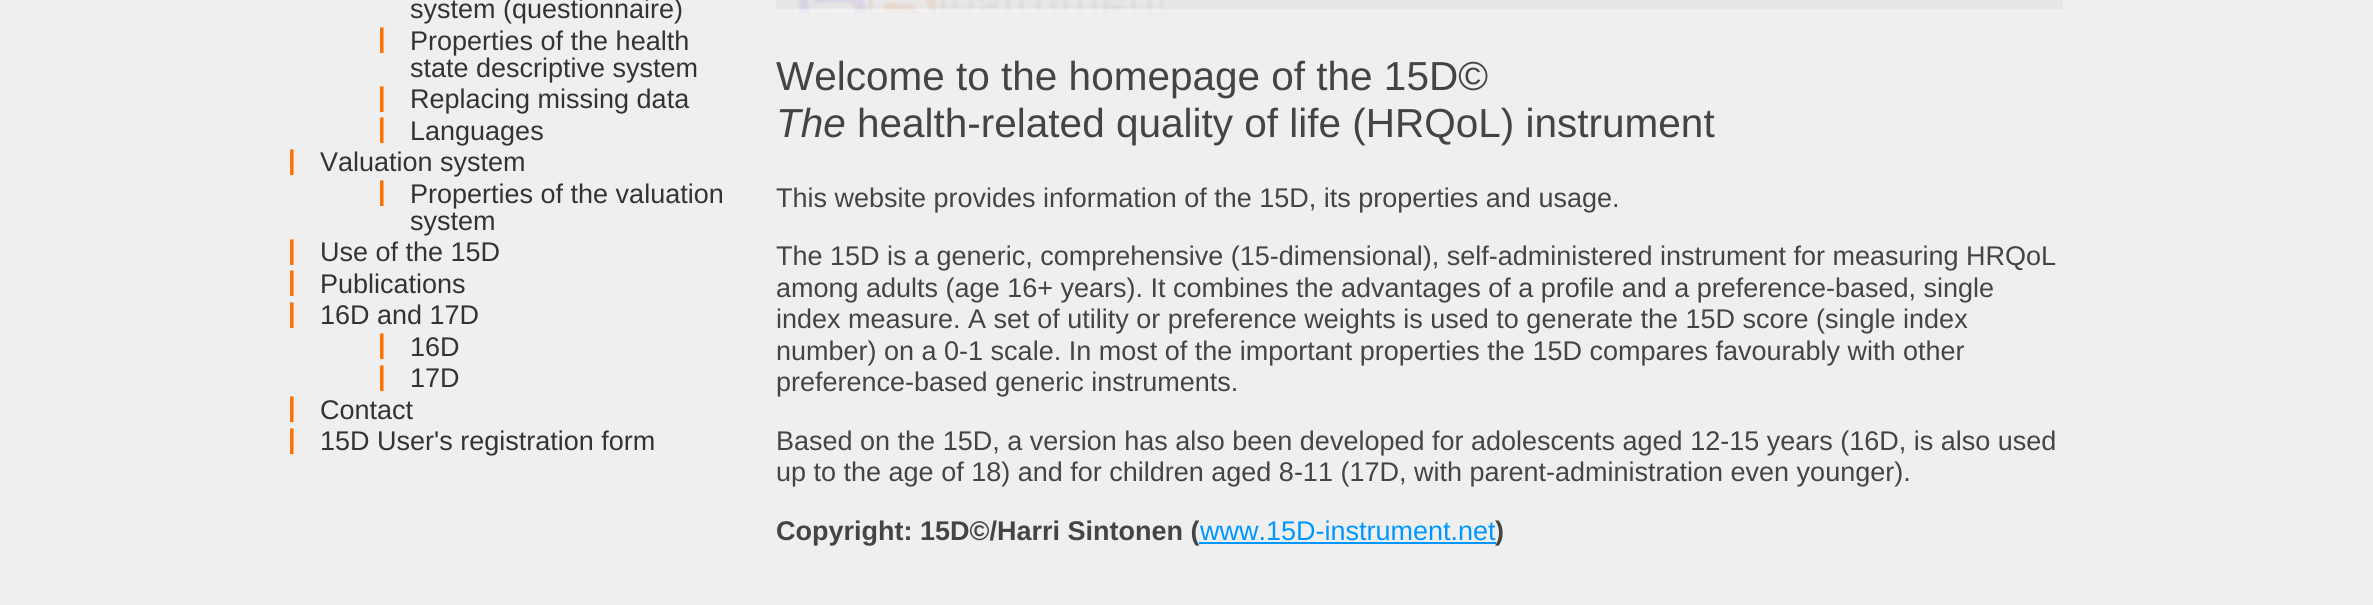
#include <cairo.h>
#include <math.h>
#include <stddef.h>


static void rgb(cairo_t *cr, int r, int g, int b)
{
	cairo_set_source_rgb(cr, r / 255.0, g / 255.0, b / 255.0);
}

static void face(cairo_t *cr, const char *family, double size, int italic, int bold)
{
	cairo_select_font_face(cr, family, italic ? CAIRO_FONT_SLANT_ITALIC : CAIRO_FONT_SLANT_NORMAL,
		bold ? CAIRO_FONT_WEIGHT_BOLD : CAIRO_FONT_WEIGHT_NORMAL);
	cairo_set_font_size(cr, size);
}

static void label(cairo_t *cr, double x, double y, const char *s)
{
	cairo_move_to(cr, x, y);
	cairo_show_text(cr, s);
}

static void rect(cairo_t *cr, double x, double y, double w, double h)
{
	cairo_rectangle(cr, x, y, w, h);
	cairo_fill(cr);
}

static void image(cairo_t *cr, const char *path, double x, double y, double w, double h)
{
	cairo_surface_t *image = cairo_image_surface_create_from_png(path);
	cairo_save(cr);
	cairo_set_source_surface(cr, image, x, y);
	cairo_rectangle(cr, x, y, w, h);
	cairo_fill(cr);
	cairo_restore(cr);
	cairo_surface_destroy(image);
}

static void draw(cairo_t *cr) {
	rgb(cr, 239, 239, 239);
	cairo_paint(cr);
	face(cr, "Liberation Sans", 27, 0, 0);
	rgb(cr, 51, 51, 51);
	label(cr, 410, 18, "system (questionnaire)");
	face(cr, "Liberation Sans", 27, 0, 1);
	rgb(cr, 253, 113, 0);
	label(cr, 378, 47, "|");
	face(cr, "Liberation Sans", 27, 0, 0);
	rgb(cr, 51, 51, 51);
	label(cr, 410, 50, "Properties of the health");
	label(cr, 410, 77, "state descriptive system");
	face(cr, "Liberation Sans", 27, 0, 1);
	rgb(cr, 253, 113, 0);
	label(cr, 378, 106, "|");
	face(cr, "Liberation Sans", 27, 0, 0);
	rgb(cr, 51, 51, 51);
	label(cr, 410, 108, "Replacing missing data");
	face(cr, "Liberation Sans", 27, 0, 1);
	rgb(cr, 253, 113, 0);
	label(cr, 378, 137, "|");
	face(cr, "Liberation Sans", 27, 0, 0);
	rgb(cr, 51, 51, 51);
	label(cr, 410, 140, "Languages");
	face(cr, "Liberation Sans", 27, 0, 1);
	rgb(cr, 253, 113, 0);
	label(cr, 288, 169, "|");
	face(cr, "Liberation Sans", 27, 0, 0);
	rgb(cr, 51, 51, 51);
	label(cr, 320, 171, "Valuation system");
	face(cr, "Liberation Sans", 27, 0, 1);
	rgb(cr, 253, 113, 0);
	label(cr, 378, 200, "|");
	face(cr, "Liberation Sans", 27, 0, 0);
	rgb(cr, 51, 51, 51);
	label(cr, 410, 203, "Properties of the valuation");
	label(cr, 410, 230, "system");
	face(cr, "Liberation Sans", 27, 0, 1);
	rgb(cr, 253, 113, 0);
	label(cr, 288, 259, "|");
	face(cr, "Liberation Sans", 27, 0, 0);
	rgb(cr, 51, 51, 51);
	label(cr, 320, 261, "Use of the 15D");
	face(cr, "Liberation Sans", 27, 0, 1);
	rgb(cr, 253, 113, 0);
	label(cr, 288, 290, "|");
	face(cr, "Liberation Sans", 27, 0, 0);
	rgb(cr, 51, 51, 51);
	label(cr, 320, 293, "Publications");
	face(cr, "Liberation Sans", 27, 0, 1);
	rgb(cr, 253, 113, 0);
	label(cr, 288, 322, "|");
	face(cr, "Liberation Sans", 27, 0, 0);
	rgb(cr, 51, 51, 51);
	label(cr, 320, 324, "16D and 17D");
	face(cr, "Liberation Sans", 27, 0, 1);
	rgb(cr, 253, 113, 0);
	label(cr, 378, 353, "|");
	face(cr, "Liberation Sans", 27, 0, 0);
	rgb(cr, 51, 51, 51);
	label(cr, 410, 356, "16D");
	face(cr, "Liberation Sans", 27, 0, 1);
	rgb(cr, 253, 113, 0);
	label(cr, 378, 385, "|");
	face(cr, "Liberation Sans", 27, 0, 0);
	rgb(cr, 51, 51, 51);
	label(cr, 410, 387, "17D");
	face(cr, "Liberation Sans", 27, 0, 1);
	rgb(cr, 253, 113, 0);
	label(cr, 288, 416, "|");
	face(cr, "Liberation Sans", 27, 0, 0);
	rgb(cr, 51, 51, 51);
	label(cr, 320, 419, "Contact");
	face(cr, "Liberation Sans", 27, 0, 1);
	rgb(cr, 253, 113, 0);
	label(cr, 288, 448, "|");
	face(cr, "Liberation Sans", 27, 0, 0);
	rgb(cr, 51, 51, 51);
	label(cr, 320, 450, "15D User's registration form");
	rgb(cr, 231, 231, 231);
	rect(cr, 776, 0, 1287, 9);
	image(cr, "image0.png", 796, 0, 369, 13);
	face(cr, "Liberation Sans", 40.5, 0, 0);
	rgb(cr, 68, 68, 68);
	label(cr, 776, 90, "Welcome to the homepage of the 15D©");
	face(cr, "Liberation Sans", 40.5, 1, 0);
	label(cr, 776, 137, "The");
	face(cr, "Liberation Sans", 40.5, 0, 0);
	label(cr, 857, 137, "health-related quality of life (HRQoL) instrument");
	face(cr, "Liberation Sans", 27, 0, 0);
	label(cr, 776, 207, "This website provides information of the 15D, its properties and usage.");
	label(cr, 776, 265, "The 15D is a generic, comprehensive (15-dimensional), self-administered instrument for measuring HRQoL");
	label(cr, 776, 297, "among adults (age 16+ years). It combines the advantages of a profile and a preference-based, single");
	label(cr, 776, 328, "index measure. A set of utility or preference weights is used to generate the 15D score (single index");
	label(cr, 776, 360, "number) on a 0-1 scale. In most of the important properties the 15D compares favourably with other");
	label(cr, 776, 391, "preference-based generic instruments.");
	label(cr, 776, 450, "Based on the 15D, a version has also been developed for adolescents aged 12-15 years (16D, is also used");
	label(cr, 776, 481, "up to the age of 18) and for children aged 8-11 (17D, with parent-administration even younger).");
	face(cr, "Liberation Sans", 27, 0, 1);
	label(cr, 776, 540, "Copyright: 15D©/Harri Sintonen (");
	face(cr, "Liberation Sans", 27, 0, 0);
	rgb(cr, 0, 150, 255);
	label(cr, 1200, 540, "www.15D-instrument.net");
	rect(cr, 1199, 542, 297, 2);
	face(cr, "Liberation Sans", 27, 0, 1);
	rgb(cr, 68, 68, 68);
	label(cr, 1495, 540, ")");
}

int main(void) {
	cairo_surface_t *surface = cairo_image_surface_create(CAIRO_FORMAT_RGB24, 2373, 605);
	cairo_t *cr = cairo_create(surface);
	cairo_font_options_t *options = cairo_font_options_create();
	cairo_font_options_set_hint_metrics(options, CAIRO_HINT_METRICS_OFF);
	cairo_font_options_set_hint_style(options, CAIRO_HINT_STYLE_NONE);
	cairo_set_font_options(cr, options);
	cairo_set_miter_limit(cr, 4);
	draw(cr);
	cairo_surface_write_to_png(surface, "render.png");
	cairo_font_options_destroy(options);
	cairo_destroy(cr);
	cairo_surface_destroy(surface);
	return 0;
}
